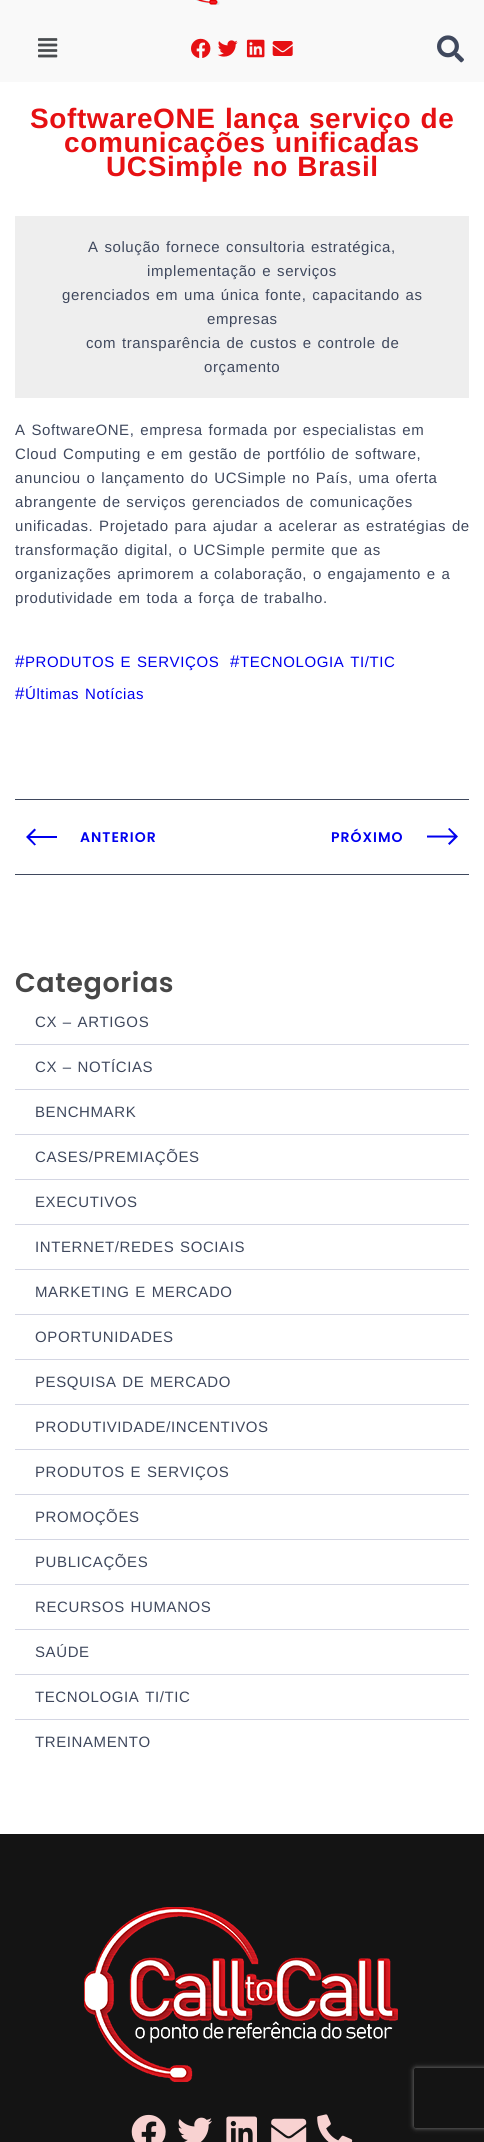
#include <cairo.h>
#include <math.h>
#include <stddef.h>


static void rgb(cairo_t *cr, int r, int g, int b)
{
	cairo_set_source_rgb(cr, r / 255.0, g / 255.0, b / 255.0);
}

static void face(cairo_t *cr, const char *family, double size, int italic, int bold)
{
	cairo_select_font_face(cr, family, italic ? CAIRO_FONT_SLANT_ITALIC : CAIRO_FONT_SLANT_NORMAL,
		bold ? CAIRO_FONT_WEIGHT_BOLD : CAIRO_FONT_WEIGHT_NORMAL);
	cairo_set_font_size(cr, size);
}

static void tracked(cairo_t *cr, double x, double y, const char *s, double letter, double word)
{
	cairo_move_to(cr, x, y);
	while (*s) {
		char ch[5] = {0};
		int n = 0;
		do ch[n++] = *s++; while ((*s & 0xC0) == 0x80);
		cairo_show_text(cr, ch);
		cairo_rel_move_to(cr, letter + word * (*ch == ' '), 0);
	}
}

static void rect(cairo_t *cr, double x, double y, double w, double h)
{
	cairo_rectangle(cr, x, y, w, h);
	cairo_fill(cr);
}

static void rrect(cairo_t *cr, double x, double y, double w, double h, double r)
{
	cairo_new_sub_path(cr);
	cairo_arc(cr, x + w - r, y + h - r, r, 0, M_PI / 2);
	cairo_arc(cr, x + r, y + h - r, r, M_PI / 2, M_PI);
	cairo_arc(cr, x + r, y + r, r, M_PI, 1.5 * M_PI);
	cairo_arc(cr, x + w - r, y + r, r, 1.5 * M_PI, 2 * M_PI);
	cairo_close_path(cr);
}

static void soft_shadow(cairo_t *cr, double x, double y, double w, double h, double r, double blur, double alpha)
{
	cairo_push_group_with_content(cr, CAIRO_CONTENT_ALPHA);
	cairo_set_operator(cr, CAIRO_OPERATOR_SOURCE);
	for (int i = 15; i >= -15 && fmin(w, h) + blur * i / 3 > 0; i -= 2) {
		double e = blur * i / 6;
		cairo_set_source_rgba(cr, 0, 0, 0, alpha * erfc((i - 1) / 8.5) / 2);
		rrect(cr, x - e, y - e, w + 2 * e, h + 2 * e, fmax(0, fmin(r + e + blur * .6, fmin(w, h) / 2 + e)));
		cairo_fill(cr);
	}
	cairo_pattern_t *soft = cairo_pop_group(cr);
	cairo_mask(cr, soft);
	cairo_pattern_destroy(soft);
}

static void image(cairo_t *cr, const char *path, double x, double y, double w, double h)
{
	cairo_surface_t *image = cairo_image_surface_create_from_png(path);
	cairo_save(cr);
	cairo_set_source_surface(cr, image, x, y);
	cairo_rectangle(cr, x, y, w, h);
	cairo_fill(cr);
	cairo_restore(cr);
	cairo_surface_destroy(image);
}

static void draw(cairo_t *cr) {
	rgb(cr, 255, 255, 255);
	cairo_paint(cr);
	rgb(cr, 249, 249, 249);
	rect(cr, 0, 0, 484, 82);
	image(cr, "image0.png", 194, 0, 26, 5);
	image(cr, "image1.png", 38, 38, 20, 20);
	image(cr, "image2.png", 191, 38, 20, 20);
	image(cr, "image3.png", 217, 40, 21, 17);
	image(cr, "image4.png", 246, 39, 19, 19);
	image(cr, "image5.png", 272, 41, 21, 15);
	image(cr, "image6.png", 437, 35, 27, 28);
	face(cr, "Liberation Sans", 28, 0, 1);
	rgb(cr, 230, 16, 19);
	tracked(cr, 30, 128, "SoftwareONE lança serviço de", 0.6, 1);
	tracked(cr, 64, 152, "comunicações unificadas", 0.6, 1);
	tracked(cr, 106, 176, "UCSimple no Brasil", 0.6, 1);
	rgb(cr, 238, 238, 238);
	rect(cr, 15, 216, 454, 182);
	face(cr, "Liberation Sans", 15, 0, 0);
	rgb(cr, 63, 72, 93);
	tracked(cr, 88, 252, "A solução fornece consultoria estratégica,", 0.6, 1);
	tracked(cr, 147, 276, "implementação e serviços", 0.6, 1);
	tracked(cr, 62, 300, "gerenciados em uma única fonte, capacitando as", 0.6, 1);
	tracked(cr, 207, 324, "empresas", 0.6, 0);
	tracked(cr, 86, 348, "com transparência de custos e controle de", 0.6, 1);
	tracked(cr, 204, 372, "orçamento", 0.6, 0);
	tracked(cr, 15, 435, "A SoftwareONE, empresa formada por especialistas em", 0.6, 1);
	tracked(cr, 15, 459, "Cloud Computing e", 0.6, 1);
	tracked(cr, 161, 459, "em gestão de portfólio de software,", 0.6, 1);
	tracked(cr, 15, 483, "anunciou o lançamento do UCSimple", 0.6, 1);
	tracked(cr, 292, 483, "no País, uma oferta", 0.6, 1);
	tracked(cr, 15, 507, "abrangente de serviços gerenciados de comunicações", 0.6, 1);
	tracked(cr, 15, 531, "unificadas. Projetado para ajudar a acelerar as estratégias de", 0.6, 1);
	tracked(cr, 15, 555, "transformação digital, o UCSimple permite que as", 0.6, 1);
	tracked(cr, 15, 579, "organizações aprimorem a", 0.6, 1);
	tracked(cr, 214, 579, "colaboração, o engajamento e a", 0.6, 1);
	tracked(cr, 15, 603, "produtividade em toda a força de", 0.6, 1);
	tracked(cr, 264, 603, "trabalho.", 0.6, 0);
	face(cr, "Liberation Sans", 17, 0, 0);
	rgb(cr, 0, 0, 238);
	tracked(cr, 15, 667, "#", 0.6, 0);
	face(cr, "Liberation Sans", 15, 0, 0);
	tracked(cr, 25, 667, "PRODUTOS E SERVIÇOS", 0.6, 1);
	face(cr, "Liberation Sans", 17, 0, 0);
	tracked(cr, 230, 667, "#", 0.6, 0);
	face(cr, "Liberation Sans", 15, 0, 0);
	tracked(cr, 240, 667, "TECNOLOGIA TI/TIC", 0.6, 1);
	face(cr, "Liberation Sans", 17, 0, 0);
	tracked(cr, 15, 699, "#", 0.6, 0);
	face(cr, "Liberation Sans", 15, 0, 0);
	tracked(cr, 25, 699, "Últimas Notícias", 0.6, 1);
	rgb(cr, 63, 72, 93);
	rect(cr, 15, 799, 454, 1);
	rect(cr, 15, 874, 454, 1);
	rgb(cr, 0, 0, 238);
	cairo_new_path(cr);
	cairo_move_to(cr, 34.5, 845.5);
	cairo_line_to(cr, 26, 837);
	cairo_line_to(cr, 34.5, 828.5);
	cairo_line_to(cr, 36, 830);
	cairo_line_to(cr, 30, 836);
	cairo_line_to(cr, 57, 836);
	cairo_line_to(cr, 57, 838);
	cairo_line_to(cr, 30, 838);
	cairo_line_to(cr, 36, 844.5);
	cairo_close_path(cr);
	cairo_fill(cr);
	face(cr, "Poppins SemiBold", 14, 0, 0);
	tracked(cr, 80, 842, "ANTERIOR", 1, 0);
	tracked(cr, 331, 842, "PRÓXIMO", 1, 0);
	cairo_new_path(cr);
	cairo_move_to(cr, 449.5, 828);
	cairo_line_to(cr, 458, 836.5);
	cairo_line_to(cr, 449.5, 845);
	cairo_line_to(cr, 448, 843.5);
	cairo_line_to(cr, 454, 837.5);
	cairo_line_to(cr, 427, 837.5);
	cairo_line_to(cr, 427, 835.5);
	cairo_line_to(cr, 454, 835.5);
	cairo_line_to(cr, 448, 829);
	cairo_close_path(cr);
	cairo_fill(cr);
	face(cr, "Poppins SemiBold", 27, 0, 0);
	rgb(cr, 71, 71, 71);
	tracked(cr, 15, 992, "Categorias", 0.6, 0);
	rgb(cr, 212, 214, 227);
	rect(cr, 15, 1044, 454, 1);
	face(cr, "Liberation Sans", 15, 0, 0);
	rgb(cr, 63, 72, 93);
	tracked(cr, 35, 1027, "CX – ARTIGOS", 0.6, 1);
	rgb(cr, 212, 214, 227);
	rect(cr, 15, 1089, 454, 1);
	rgb(cr, 63, 72, 93);
	tracked(cr, 35, 1072, "CX – NOTÍCIAS", 0.6, 1);
	rgb(cr, 212, 214, 227);
	rect(cr, 15, 1134, 454, 1);
	rgb(cr, 63, 72, 93);
	tracked(cr, 35, 1117, "BENCHMARK", 0.6, 0);
	rgb(cr, 212, 214, 227);
	rect(cr, 15, 1179, 454, 1);
	rgb(cr, 63, 72, 93);
	tracked(cr, 35, 1162, "CASES/PREMIAÇÕES", 0.6, 0);
	rgb(cr, 212, 214, 227);
	rect(cr, 15, 1224, 454, 1);
	rgb(cr, 63, 72, 93);
	tracked(cr, 35, 1207, "EXECUTIVOS", 0.6, 0);
	rgb(cr, 212, 214, 227);
	rect(cr, 15, 1269, 454, 1);
	rgb(cr, 63, 72, 93);
	tracked(cr, 35, 1252, "INTERNET/REDES SOCIAIS", 0.6, 1);
	rgb(cr, 212, 214, 227);
	rect(cr, 15, 1314, 454, 1);
	rgb(cr, 63, 72, 93);
	tracked(cr, 35, 1297, "MARKETING E MERCADO", 0.6, 1);
	rgb(cr, 212, 214, 227);
	rect(cr, 15, 1359, 454, 1);
	rgb(cr, 63, 72, 93);
	tracked(cr, 35, 1342, "OPORTUNIDADES", 0.6, 0);
	rgb(cr, 212, 214, 227);
	rect(cr, 15, 1404, 454, 1);
	rgb(cr, 63, 72, 93);
	tracked(cr, 35, 1387, "PESQUISA DE MERCADO", 0.6, 1);
	rgb(cr, 212, 214, 227);
	rect(cr, 15, 1449, 454, 1);
	rgb(cr, 63, 72, 93);
	tracked(cr, 35, 1432, "PRODUTIVIDADE/INCENTIVOS", 0.6, 0);
	rgb(cr, 212, 214, 227);
	rect(cr, 15, 1494, 454, 1);
	rgb(cr, 63, 72, 93);
	tracked(cr, 35, 1477, "PRODUTOS E SERVIÇOS", 0.6, 1);
	rgb(cr, 212, 214, 227);
	rect(cr, 15, 1539, 454, 1);
	rgb(cr, 63, 72, 93);
	tracked(cr, 35, 1522, "PROMOÇÕES", 0.6, 0);
	rgb(cr, 212, 214, 227);
	rect(cr, 15, 1584, 454, 1);
	rgb(cr, 63, 72, 93);
	tracked(cr, 35, 1567, "PUBLICAÇÕES", 0.6, 0);
	rgb(cr, 212, 214, 227);
	rect(cr, 15, 1629, 454, 1);
	rgb(cr, 63, 72, 93);
	tracked(cr, 35, 1612, "RECURSOS HUMANOS", 0.6, 1);
	rgb(cr, 212, 214, 227);
	rect(cr, 15, 1674, 454, 1);
	rgb(cr, 63, 72, 93);
	tracked(cr, 35, 1657, "SAÚDE", 0.6, 0);
	rgb(cr, 212, 214, 227);
	rect(cr, 15, 1719, 454, 1);
	rgb(cr, 63, 72, 93);
	tracked(cr, 35, 1702, "TECNOLOGIA TI/TIC", 0.6, 1);
	tracked(cr, 35, 1747, "TREINAMENTO", 0.6, 0);
	rgb(cr, 20, 20, 20);
	rect(cr, 0, 1834, 484, 308);
	image(cr, "image7.png", 84, 1907, 314, 175);
	image(cr, "image8.png", 131, 2114, 35, 28);
	image(cr, "image9.png", 178, 2117, 34, 25);
	image(cr, "image10.png", 226, 2116, 31, 26);
	image(cr, "image11.png", 271, 2118, 36, 24);
	image(cr, "image12.png", 317, 2114, 36, 28);
	cairo_save(cr);
	cairo_set_fill_rule(cr, CAIRO_FILL_RULE_EVEN_ODD);
	cairo_new_path(cr);
	cairo_move_to(cr, 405, 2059);
	cairo_line_to(cr, 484, 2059);
	cairo_line_to(cr, 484, 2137);
	cairo_line_to(cr, 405, 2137);
	cairo_close_path(cr);
	cairo_move_to(cr, 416, 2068);
	cairo_line_to(cr, 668, 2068);
	cairo_curve_to(cr, 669, 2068, 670, 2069, 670, 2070);
	cairo_line_to(cr, 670, 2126);
	cairo_curve_to(cr, 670, 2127, 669, 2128, 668, 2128);
	cairo_line_to(cr, 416, 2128);
	cairo_curve_to(cr, 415, 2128, 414, 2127, 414, 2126);
	cairo_line_to(cr, 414, 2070);
	cairo_curve_to(cr, 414, 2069, 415, 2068, 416, 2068);
	cairo_close_path(cr);
	cairo_clip(cr);
	rgb(cr, 128, 128, 128);
	soft_shadow(cr, 414, 2068, 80, 60, 2, 2.5, 1);
	cairo_restore(cr);
}

int main(void) {
	cairo_surface_t *surface = cairo_image_surface_create(CAIRO_FORMAT_RGB24, 484, 2142);
	cairo_t *cr = cairo_create(surface);
	cairo_font_options_t *options = cairo_font_options_create();
	cairo_font_options_set_hint_metrics(options, CAIRO_HINT_METRICS_OFF);
	cairo_font_options_set_hint_style(options, CAIRO_HINT_STYLE_NONE);
	cairo_set_font_options(cr, options);
	cairo_set_miter_limit(cr, 4);
	draw(cr);
	cairo_surface_write_to_png(surface, "render.png");
	cairo_font_options_destroy(options);
	cairo_destroy(cr);
	cairo_surface_destroy(surface);
	return 0;
}
